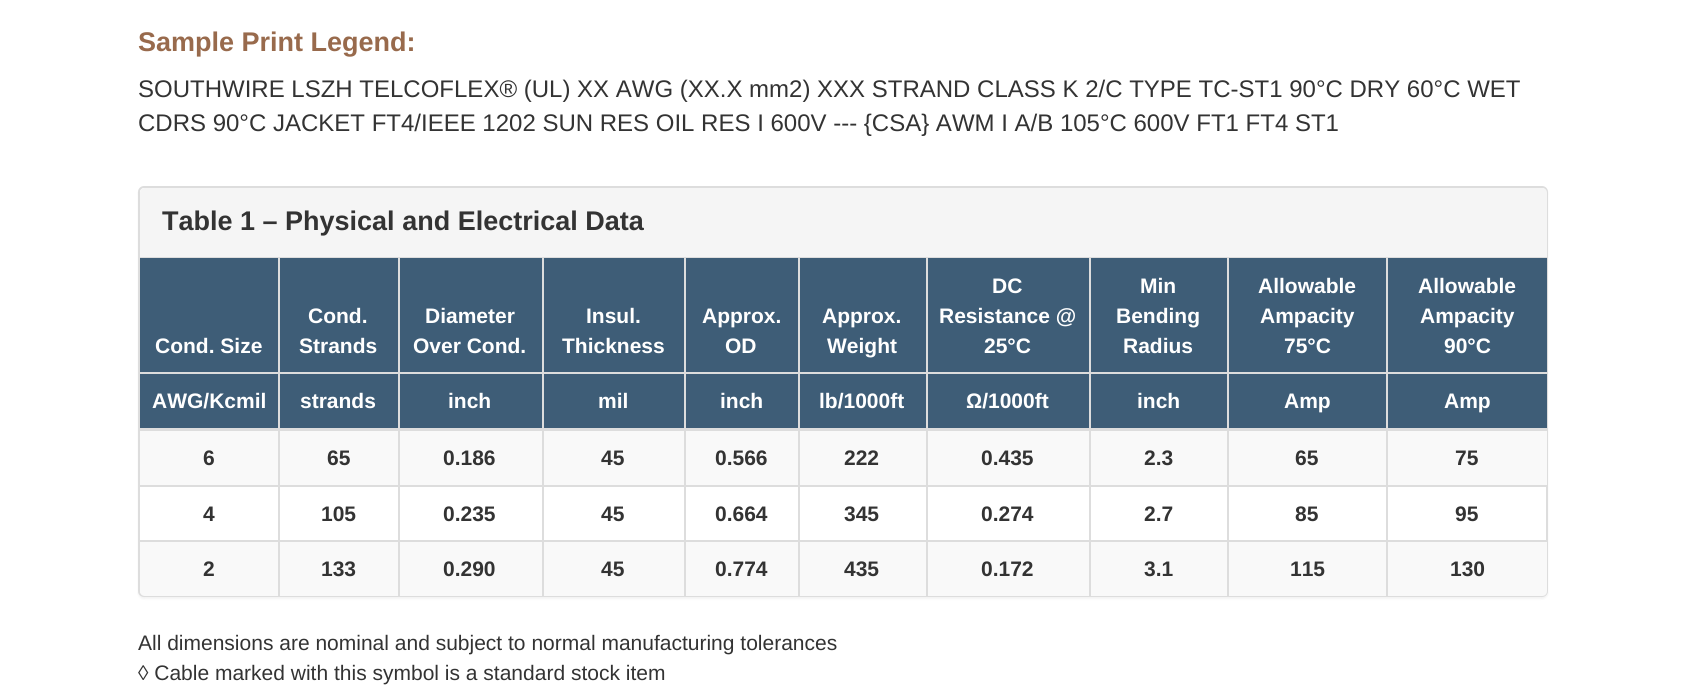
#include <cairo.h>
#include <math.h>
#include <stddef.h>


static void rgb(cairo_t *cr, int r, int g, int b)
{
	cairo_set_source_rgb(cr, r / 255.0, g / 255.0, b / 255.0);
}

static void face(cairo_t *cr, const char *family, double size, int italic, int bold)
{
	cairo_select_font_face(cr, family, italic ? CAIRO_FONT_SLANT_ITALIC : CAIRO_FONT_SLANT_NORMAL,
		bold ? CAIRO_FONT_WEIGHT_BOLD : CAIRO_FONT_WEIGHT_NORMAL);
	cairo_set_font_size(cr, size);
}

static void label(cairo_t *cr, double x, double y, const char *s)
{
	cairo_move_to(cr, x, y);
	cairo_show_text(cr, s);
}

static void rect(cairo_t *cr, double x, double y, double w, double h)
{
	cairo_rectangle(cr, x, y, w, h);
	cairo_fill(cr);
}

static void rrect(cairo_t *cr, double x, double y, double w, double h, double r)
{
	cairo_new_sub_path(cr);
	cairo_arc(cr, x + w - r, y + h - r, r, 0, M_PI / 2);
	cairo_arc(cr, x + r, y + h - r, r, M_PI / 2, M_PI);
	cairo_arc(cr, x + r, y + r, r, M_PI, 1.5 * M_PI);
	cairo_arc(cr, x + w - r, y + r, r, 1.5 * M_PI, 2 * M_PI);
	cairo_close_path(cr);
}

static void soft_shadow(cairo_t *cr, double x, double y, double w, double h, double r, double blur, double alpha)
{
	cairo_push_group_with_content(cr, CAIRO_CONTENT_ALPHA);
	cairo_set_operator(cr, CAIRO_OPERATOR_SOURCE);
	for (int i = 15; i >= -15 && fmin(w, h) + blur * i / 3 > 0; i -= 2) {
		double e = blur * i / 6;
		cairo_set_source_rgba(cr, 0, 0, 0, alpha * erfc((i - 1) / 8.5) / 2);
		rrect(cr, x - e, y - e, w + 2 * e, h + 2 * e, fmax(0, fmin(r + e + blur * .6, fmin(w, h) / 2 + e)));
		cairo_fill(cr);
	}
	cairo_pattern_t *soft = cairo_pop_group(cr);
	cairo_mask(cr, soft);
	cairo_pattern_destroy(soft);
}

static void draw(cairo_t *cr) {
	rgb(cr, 255, 255, 255);
	cairo_paint(cr);
	face(cr, "Liberation Sans", 27, 0, 1);
	rgb(cr, 152, 106, 76);
	label(cr, 138, 51, "Sample Print Legend:");
	face(cr, "Liberation Sans", 24, 0, 0);
	rgb(cr, 51, 51, 51);
	label(cr, 138, 97, "SOUTHWIRE LSZH TELCOFLEX® (UL) XX AWG (XX.X mm2) XXX STRAND CLASS K 2/C TYPE TC-ST1 90°C DRY 60°C WET");
	label(cr, 138, 131, "CDRS 90°C JACKET FT4/IEEE 1202 SUN RES OIL RES I 600V --- {CSA} AWM I A/B 105°C 600V FT1 FT4 ST1");
	rgb(cr, 0, 0, 0);
	soft_shadow(cr, 138, 188, 1410, 411, 6, 1, 0.05);
	rgb(cr, 255, 255, 255);
	rrect(cr, 139, 187, 1408, 409, 5);
	cairo_fill_preserve(cr);
	rgb(cr, 221, 221, 221);
	cairo_stroke(cr);
	rgb(cr, 245, 245, 245);
	cairo_new_path(cr);
	cairo_move_to(cr, 145, 188);
	cairo_line_to(cr, 1542, 188);
	cairo_curve_to(cr, 1545, 188, 1547, 190, 1547, 193);
	cairo_line_to(cr, 1547, 258);
	cairo_line_to(cr, 140, 258);
	cairo_line_to(cr, 140, 193);
	cairo_curve_to(cr, 140, 190, 142, 188, 145, 188);
	cairo_close_path(cr);
	cairo_fill(cr);
	rgb(cr, 221, 221, 221);
	rect(cr, 140, 257, 1407, 1);
	face(cr, "Liberation Sans", 27, 0, 1);
	rgb(cr, 51, 51, 51);
	label(cr, 162, 230, "Table 1 – Physical and Electrical Data");
	rgb(cr, 62, 93, 119);
	rect(cr, 140, 258, 1407, 170);
	face(cr, "Liberation Sans", 21, 0, 1);
	rgb(cr, 255, 255, 255);
	label(cr, 155, 353, "Cond. Size");
	rgb(cr, 221, 221, 221);
	rect(cr, 1386, 372, 161, 2);
	rgb(cr, 249, 249, 249);
	rect(cr, 140, 431, 1407, 54);
	rgb(cr, 221, 221, 221);
	rect(cr, 1386, 485, 161, 2);
	rect(cr, 1386, 540, 161, 2);
	rgb(cr, 249, 249, 249);
	cairo_new_path(cr);
	cairo_move_to(cr, 140, 542);
	cairo_line_to(cr, 1547, 542);
	cairo_line_to(cr, 1547, 591);
	cairo_curve_to(cr, 1547, 594, 1545, 596, 1542, 596);
	cairo_line_to(cr, 145, 596);
	cairo_curve_to(cr, 142, 596, 140, 594, 140, 591);
	cairo_close_path(cr);
	cairo_fill(cr);
	rgb(cr, 221, 221, 221);
	rect(cr, 1386, 540, 2, 56);
	rect(cr, 1227, 540, 161, 2);
	rect(cr, 1386, 485, 2, 57);
	rect(cr, 1227, 485, 161, 2);
	rect(cr, 1386, 429, 2, 57);
	rect(cr, 1386, 372, 2, 59);
	rect(cr, 1227, 372, 161, 2);
	rect(cr, 1227, 540, 2, 56);
	rect(cr, 1089, 540, 140, 2);
	rect(cr, 1227, 485, 2, 57);
	rect(cr, 1089, 485, 140, 2);
	rect(cr, 1227, 429, 2, 57);
	rect(cr, 1227, 372, 2, 59);
	rect(cr, 1089, 372, 140, 2);
	rect(cr, 1089, 540, 2, 56);
	rect(cr, 926, 540, 165, 2);
	rect(cr, 1089, 485, 2, 57);
	rect(cr, 926, 485, 165, 2);
	rect(cr, 1089, 429, 2, 57);
	rect(cr, 1089, 372, 2, 59);
	rect(cr, 926, 372, 165, 2);
	rect(cr, 926, 540, 2, 56);
	rect(cr, 798, 540, 129, 2);
	rect(cr, 926, 485, 2, 57);
	rect(cr, 798, 485, 129, 2);
	rect(cr, 926, 429, 2, 57);
	rect(cr, 926, 372, 2, 59);
	rect(cr, 798, 372, 129, 2);
	rect(cr, 798, 540, 2, 56);
	rect(cr, 684, 540, 116, 2);
	rect(cr, 798, 485, 2, 57);
	rect(cr, 684, 485, 116, 2);
	rect(cr, 798, 429, 2, 57);
	rect(cr, 798, 372, 2, 59);
	rect(cr, 684, 372, 116, 2);
	rect(cr, 684, 540, 2, 56);
	rect(cr, 542, 540, 144, 2);
	rect(cr, 684, 485, 2, 57);
	rect(cr, 542, 485, 144, 2);
	rect(cr, 684, 429, 2, 57);
	rect(cr, 684, 372, 2, 59);
	rect(cr, 542, 372, 144, 2);
	rect(cr, 542, 540, 2, 56);
	rect(cr, 398, 540, 145, 2);
	rect(cr, 542, 485, 2, 57);
	rect(cr, 398, 485, 145, 2);
	rect(cr, 542, 429, 2, 57);
	rect(cr, 542, 372, 2, 59);
	rect(cr, 398, 372, 145, 2);
	rect(cr, 398, 540, 2, 56);
	rect(cr, 278, 540, 121, 2);
	rect(cr, 398, 485, 2, 57);
	rect(cr, 278, 485, 121, 2);
	rect(cr, 398, 429, 2, 57);
	rect(cr, 398, 372, 2, 59);
	rect(cr, 278, 372, 121, 2);
	rect(cr, 278, 540, 2, 56);
	rect(cr, 140, 540, 139, 2);
	rect(cr, 278, 485, 2, 57);
	rect(cr, 140, 485, 139, 2);
	rect(cr, 278, 429, 2, 57);
	rect(cr, 278, 372, 2, 59);
	rect(cr, 140, 372, 139, 2);
	rect(cr, 278, 258, 2, 116);
	rgb(cr, 255, 255, 255);
	label(cr, 308, 323, "Cond.");
	label(cr, 299, 353, "Strands");
	rgb(cr, 221, 221, 221);
	rect(cr, 398, 258, 2, 116);
	rgb(cr, 255, 255, 255);
	label(cr, 425, 323, "Diameter");
	label(cr, 413, 353, "Over Cond.");
	rgb(cr, 221, 221, 221);
	rect(cr, 542, 258, 2, 116);
	rgb(cr, 255, 255, 255);
	label(cr, 586, 323, "Insul.");
	label(cr, 562, 353, "Thickness");
	rgb(cr, 221, 221, 221);
	rect(cr, 684, 258, 2, 116);
	rgb(cr, 255, 255, 255);
	label(cr, 702, 323, "Approx.");
	label(cr, 725, 353, "OD");
	rgb(cr, 221, 221, 221);
	rect(cr, 798, 258, 2, 116);
	rgb(cr, 255, 255, 255);
	label(cr, 822, 323, "Approx.");
	label(cr, 827, 353, "Weight");
	rgb(cr, 221, 221, 221);
	rect(cr, 926, 258, 2, 116);
	rgb(cr, 255, 255, 255);
	label(cr, 992, 293, "DC");
	label(cr, 939, 323, "Resistance @");
	label(cr, 984, 353, "25°C");
	rgb(cr, 221, 221, 221);
	rect(cr, 1089, 258, 2, 116);
	rgb(cr, 255, 255, 255);
	label(cr, 1140, 293, "Min");
	label(cr, 1116, 323, "Bending");
	label(cr, 1123, 353, "Radius");
	rgb(cr, 221, 221, 221);
	rect(cr, 1227, 258, 2, 116);
	rgb(cr, 255, 255, 255);
	label(cr, 1258, 293, "Allowable");
	label(cr, 1260, 323, "Ampacity");
	label(cr, 1284, 353, "75°C");
	rgb(cr, 221, 221, 221);
	rect(cr, 1386, 258, 2, 116);
	rgb(cr, 255, 255, 255);
	label(cr, 1418, 293, "Allowable");
	label(cr, 1420, 323, "Ampacity");
	label(cr, 1444, 353, "90°C");
	label(cr, 152, 408, "AWG/Kcmil");
	label(cr, 300, 408, "strands");
	label(cr, 448, 408, "inch");
	label(cr, 598, 408, "mil");
	label(cr, 720, 408, "inch");
	label(cr, 819, 408, "lb/1000ft");
	label(cr, 966, 408, "Ω/1000ft");
	label(cr, 1137, 408, "inch");
	label(cr, 1284, 408, "Amp");
	rgb(cr, 221, 221, 221);
	rect(cr, 140, 428, 1407, 3);
	rgb(cr, 255, 255, 255);
	label(cr, 1444, 408, "Amp");
	rgb(cr, 51, 51, 51);
	label(cr, 203, 465, "6");
	label(cr, 327, 465, "65");
	label(cr, 443, 465, "0.186");
	label(cr, 601, 465, "45");
	label(cr, 715, 465, "0.566");
	label(cr, 844, 465, "222");
	label(cr, 981, 465, "0.435");
	label(cr, 1144, 465, "2.3");
	label(cr, 1295, 465, "65");
	label(cr, 1455, 465, "75");
	label(cr, 203, 521, "4");
	label(cr, 321, 521, "105");
	label(cr, 443, 521, "0.235");
	label(cr, 601, 521, "45");
	label(cr, 715, 521, "0.664");
	label(cr, 844, 521, "345");
	label(cr, 981, 521, "0.274");
	label(cr, 1144, 521, "2.7");
	label(cr, 1295, 521, "85");
	label(cr, 1455, 521, "95");
	label(cr, 203, 576, "2");
	label(cr, 321, 576, "133");
	label(cr, 443, 576, "0.290");
	label(cr, 601, 576, "45");
	label(cr, 715, 576, "0.774");
	label(cr, 844, 576, "435");
	label(cr, 981, 576, "0.172");
	label(cr, 1144, 576, "3.1");
	label(cr, 1290, 576, "115");
	label(cr, 1450, 576, "130");
	face(cr, "Liberation Sans", 21, 0, 0);
	label(cr, 138, 650, "All dimensions are nominal and subject to normal manufacturing tolerances");
	label(cr, 138, 680, "◊ Cable marked with this symbol is a standard stock item");
}

int main(void) {
	cairo_surface_t *surface = cairo_image_surface_create(CAIRO_FORMAT_RGB24, 1685, 695);
	cairo_t *cr = cairo_create(surface);
	cairo_font_options_t *options = cairo_font_options_create();
	cairo_font_options_set_hint_metrics(options, CAIRO_HINT_METRICS_OFF);
	cairo_font_options_set_hint_style(options, CAIRO_HINT_STYLE_NONE);
	cairo_set_font_options(cr, options);
	cairo_set_miter_limit(cr, 4);
	draw(cr);
	cairo_surface_write_to_png(surface, "render.png");
	cairo_font_options_destroy(options);
	cairo_destroy(cr);
	cairo_surface_destroy(surface);
	return 0;
}
